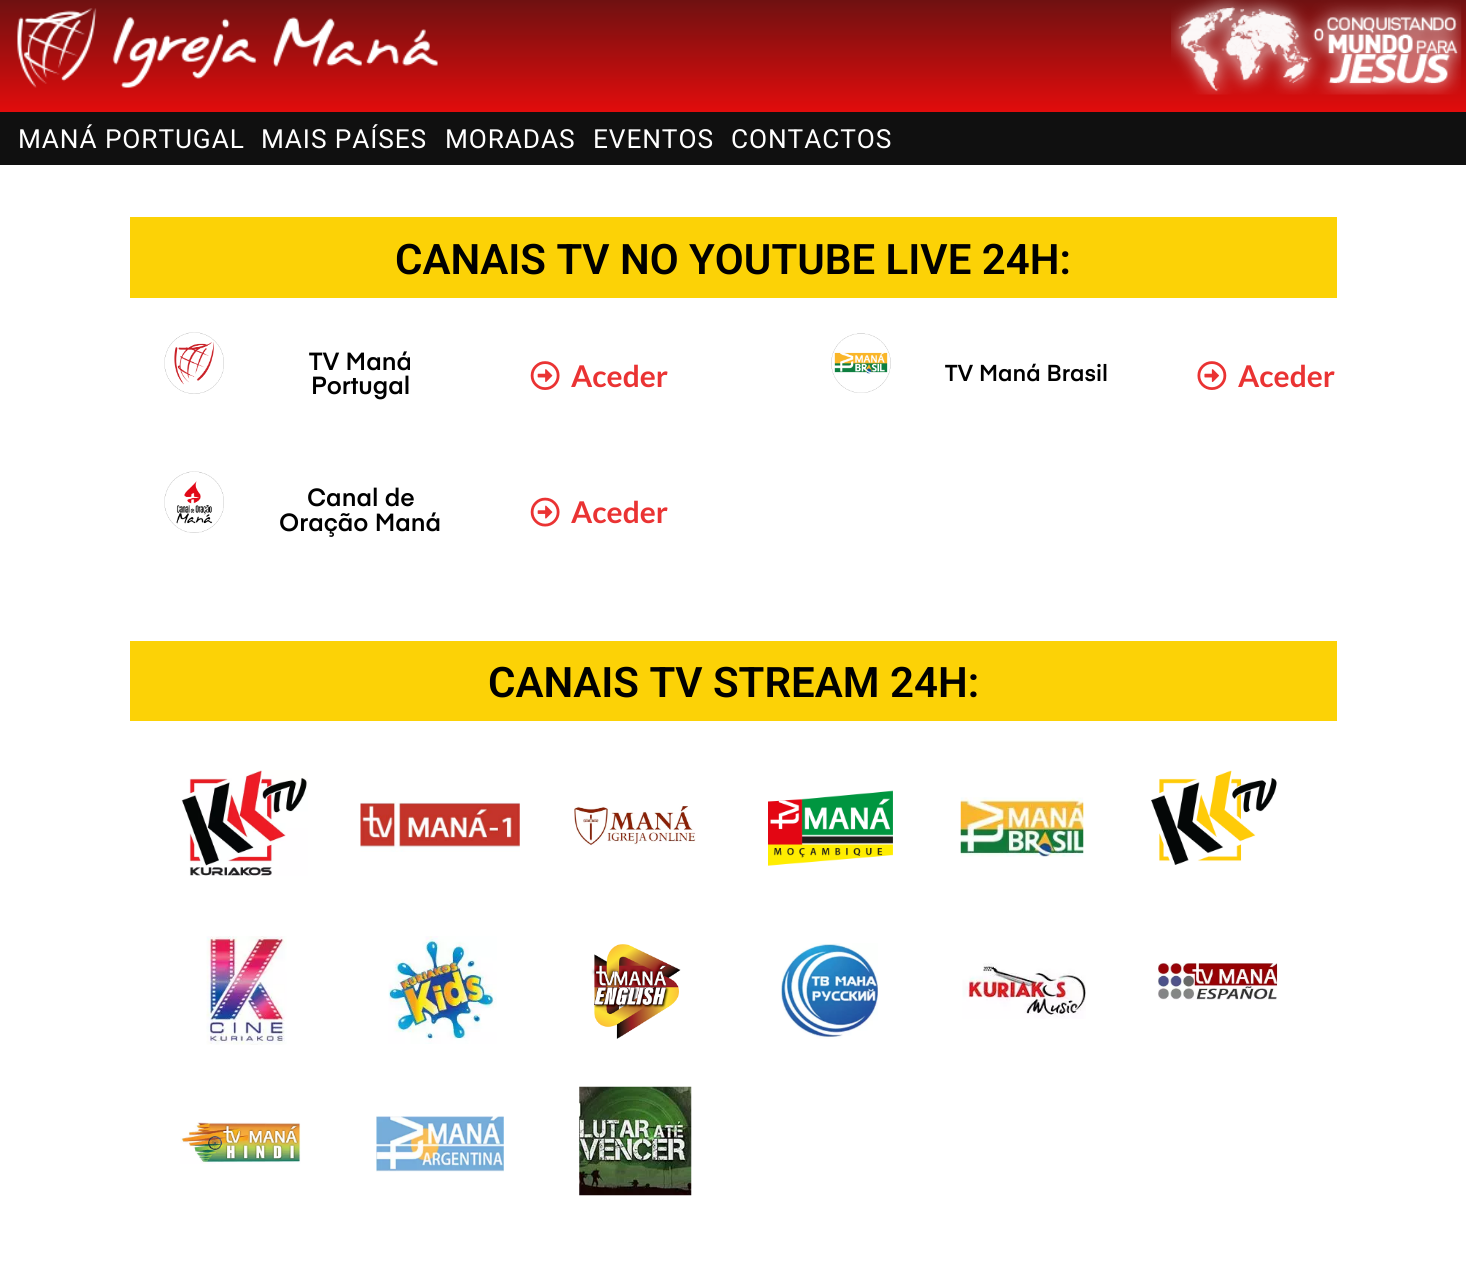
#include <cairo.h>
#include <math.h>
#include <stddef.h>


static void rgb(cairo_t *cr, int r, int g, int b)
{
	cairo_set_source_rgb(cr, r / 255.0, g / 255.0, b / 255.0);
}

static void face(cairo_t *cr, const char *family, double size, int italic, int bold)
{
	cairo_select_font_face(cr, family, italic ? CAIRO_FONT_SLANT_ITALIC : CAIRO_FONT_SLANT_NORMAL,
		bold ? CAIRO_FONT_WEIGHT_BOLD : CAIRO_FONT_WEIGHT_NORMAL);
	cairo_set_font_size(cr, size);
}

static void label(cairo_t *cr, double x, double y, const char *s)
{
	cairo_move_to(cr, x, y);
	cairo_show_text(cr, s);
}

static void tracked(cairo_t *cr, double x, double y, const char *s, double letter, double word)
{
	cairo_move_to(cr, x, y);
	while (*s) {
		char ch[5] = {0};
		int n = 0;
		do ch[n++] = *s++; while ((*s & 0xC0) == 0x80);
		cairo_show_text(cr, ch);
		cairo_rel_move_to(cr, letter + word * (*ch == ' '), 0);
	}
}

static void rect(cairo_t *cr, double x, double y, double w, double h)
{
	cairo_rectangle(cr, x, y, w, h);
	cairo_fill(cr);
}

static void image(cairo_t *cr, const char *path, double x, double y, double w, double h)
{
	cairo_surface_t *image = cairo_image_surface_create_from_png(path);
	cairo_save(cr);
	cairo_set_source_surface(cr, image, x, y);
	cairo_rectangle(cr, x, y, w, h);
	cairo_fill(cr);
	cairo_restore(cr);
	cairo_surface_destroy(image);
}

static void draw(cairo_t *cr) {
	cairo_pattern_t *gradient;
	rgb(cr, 255, 255, 255);
	cairo_paint(cr);
	gradient = cairo_pattern_create_linear(733, 0, 733, 112);
	cairo_pattern_add_color_stop_rgba(gradient, 0, 0.435, 0.067, 0.067, 1);
	cairo_pattern_add_color_stop_rgba(gradient, 1, 0.886, 0.047, 0.047, 1);
	cairo_set_source(cr, gradient);
	cairo_pattern_destroy(gradient);
	rect(cr, 0, 0, 1466, 112);
	image(cr, "image0.png", 17, 8, 421, 80);
	image(cr, "image1.png", 1171, 0, 291, 95);
	rgb(cr, 16, 16, 16);
	rect(cr, 0, 112, 1466, 53);
	face(cr, "Roboto", 26.25, 0, 0);
	rgb(cr, 255, 255, 255);
	tracked(cr, 18, 148, "MANÁ PORTUGAL", 0.9, 0);
	tracked(cr, 261, 148, "MAIS PAÍSES", 0.9, 0);
	tracked(cr, 445, 148, "MORADAS", 0.9, 0);
	tracked(cr, 593, 148, "EVENTOS", 0.9, 0);
	tracked(cr, 731, 148, "CONTACTOS", 0.9, 0);
	rgb(cr, 252, 210, 6);
	rect(cr, 130, 217, 1207, 81);
	face(cr, "Roboto SemiBold", 42, 0, 0);
	rgb(cr, 0, 0, 0);
	label(cr, 395, 274, "CANAIS TV NO YOUTUBE LIVE 24H:");
	image(cr, "image2.png", 164, 332, 60, 62);
	face(cr, "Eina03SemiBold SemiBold", 24.5, 0, 0);
	label(cr, 309, 370, "TV Maná");
	label(cr, 311, 394, "Portugal");
	image(cr, "image3.png", 530, 361, 30, 29);
	face(cr, "Lato", 30, 0, 1);
	rgb(cr, 234, 51, 51);
	label(cr, 571, 387, "Aceder");
	image(cr, "image4.png", 831, 333, 60, 60);
	face(cr, "Eina03SemiBold SemiBold", 22.75, 0, 0);
	rgb(cr, 0, 0, 0);
	label(cr, 945, 381, "TV Maná Brasil");
	image(cr, "image5.png", 1197, 361, 30, 29);
	face(cr, "Lato", 30, 0, 1);
	rgb(cr, 234, 51, 51);
	label(cr, 1238, 387, "Aceder");
	image(cr, "image6.png", 164, 471, 60, 62);
	face(cr, "Eina03SemiBold SemiBold", 24.5, 0, 0);
	rgb(cr, 0, 0, 0);
	label(cr, 307, 506, "Canal de");
	label(cr, 279, 531, "Oração Maná");
	image(cr, "image7.png", 530, 497, 30, 30);
	face(cr, "Lato", 30, 0, 1);
	rgb(cr, 234, 51, 51);
	label(cr, 571, 523, "Aceder");
	rgb(cr, 252, 210, 6);
	rect(cr, 130, 641, 1207, 80);
	face(cr, "Roboto SemiBold", 42, 0, 0);
	rgb(cr, 0, 0, 0);
	label(cr, 488, 697, "CANAIS TV STREAM 24H:");
	image(cr, "image8.png", 181, 770, 127, 106);
	image(cr, "image9.png", 360, 800, 160, 52);
	image(cr, "image10.png", 574, 806, 122, 40);
	image(cr, "image11.png", 768, 790, 125, 76);
	image(cr, "image12.png", 960, 797, 124, 60);
	image(cr, "image13.png", 1151, 770, 126, 95);
	image(cr, "image14.png", 206, 936, 81, 109);
	image(cr, "image15.png", 388, 936, 109, 108);
	image(cr, "image16.png", 591, 944, 90, 95);
	image(cr, "image17.png", 781, 943, 97, 96);
	image(cr, "image18.png", 962, 963, 124, 56);
	image(cr, "image19.png", 1158, 963, 120, 37);
	image(cr, "image20.png", 180, 1122, 121, 42);
	image(cr, "image21.png", 376, 1116, 128, 56);
	image(cr, "image22.png", 579, 1086, 113, 110);
}

int main(void) {
	cairo_surface_t *surface = cairo_image_surface_create(CAIRO_FORMAT_RGB24, 1466, 1268);
	cairo_t *cr = cairo_create(surface);
	cairo_font_options_t *options = cairo_font_options_create();
	cairo_font_options_set_hint_metrics(options, CAIRO_HINT_METRICS_OFF);
	cairo_font_options_set_hint_style(options, CAIRO_HINT_STYLE_NONE);
	cairo_set_font_options(cr, options);
	cairo_set_miter_limit(cr, 4);
	draw(cr);
	cairo_surface_write_to_png(surface, "render.png");
	cairo_font_options_destroy(options);
	cairo_destroy(cr);
	cairo_surface_destroy(surface);
	return 0;
}
